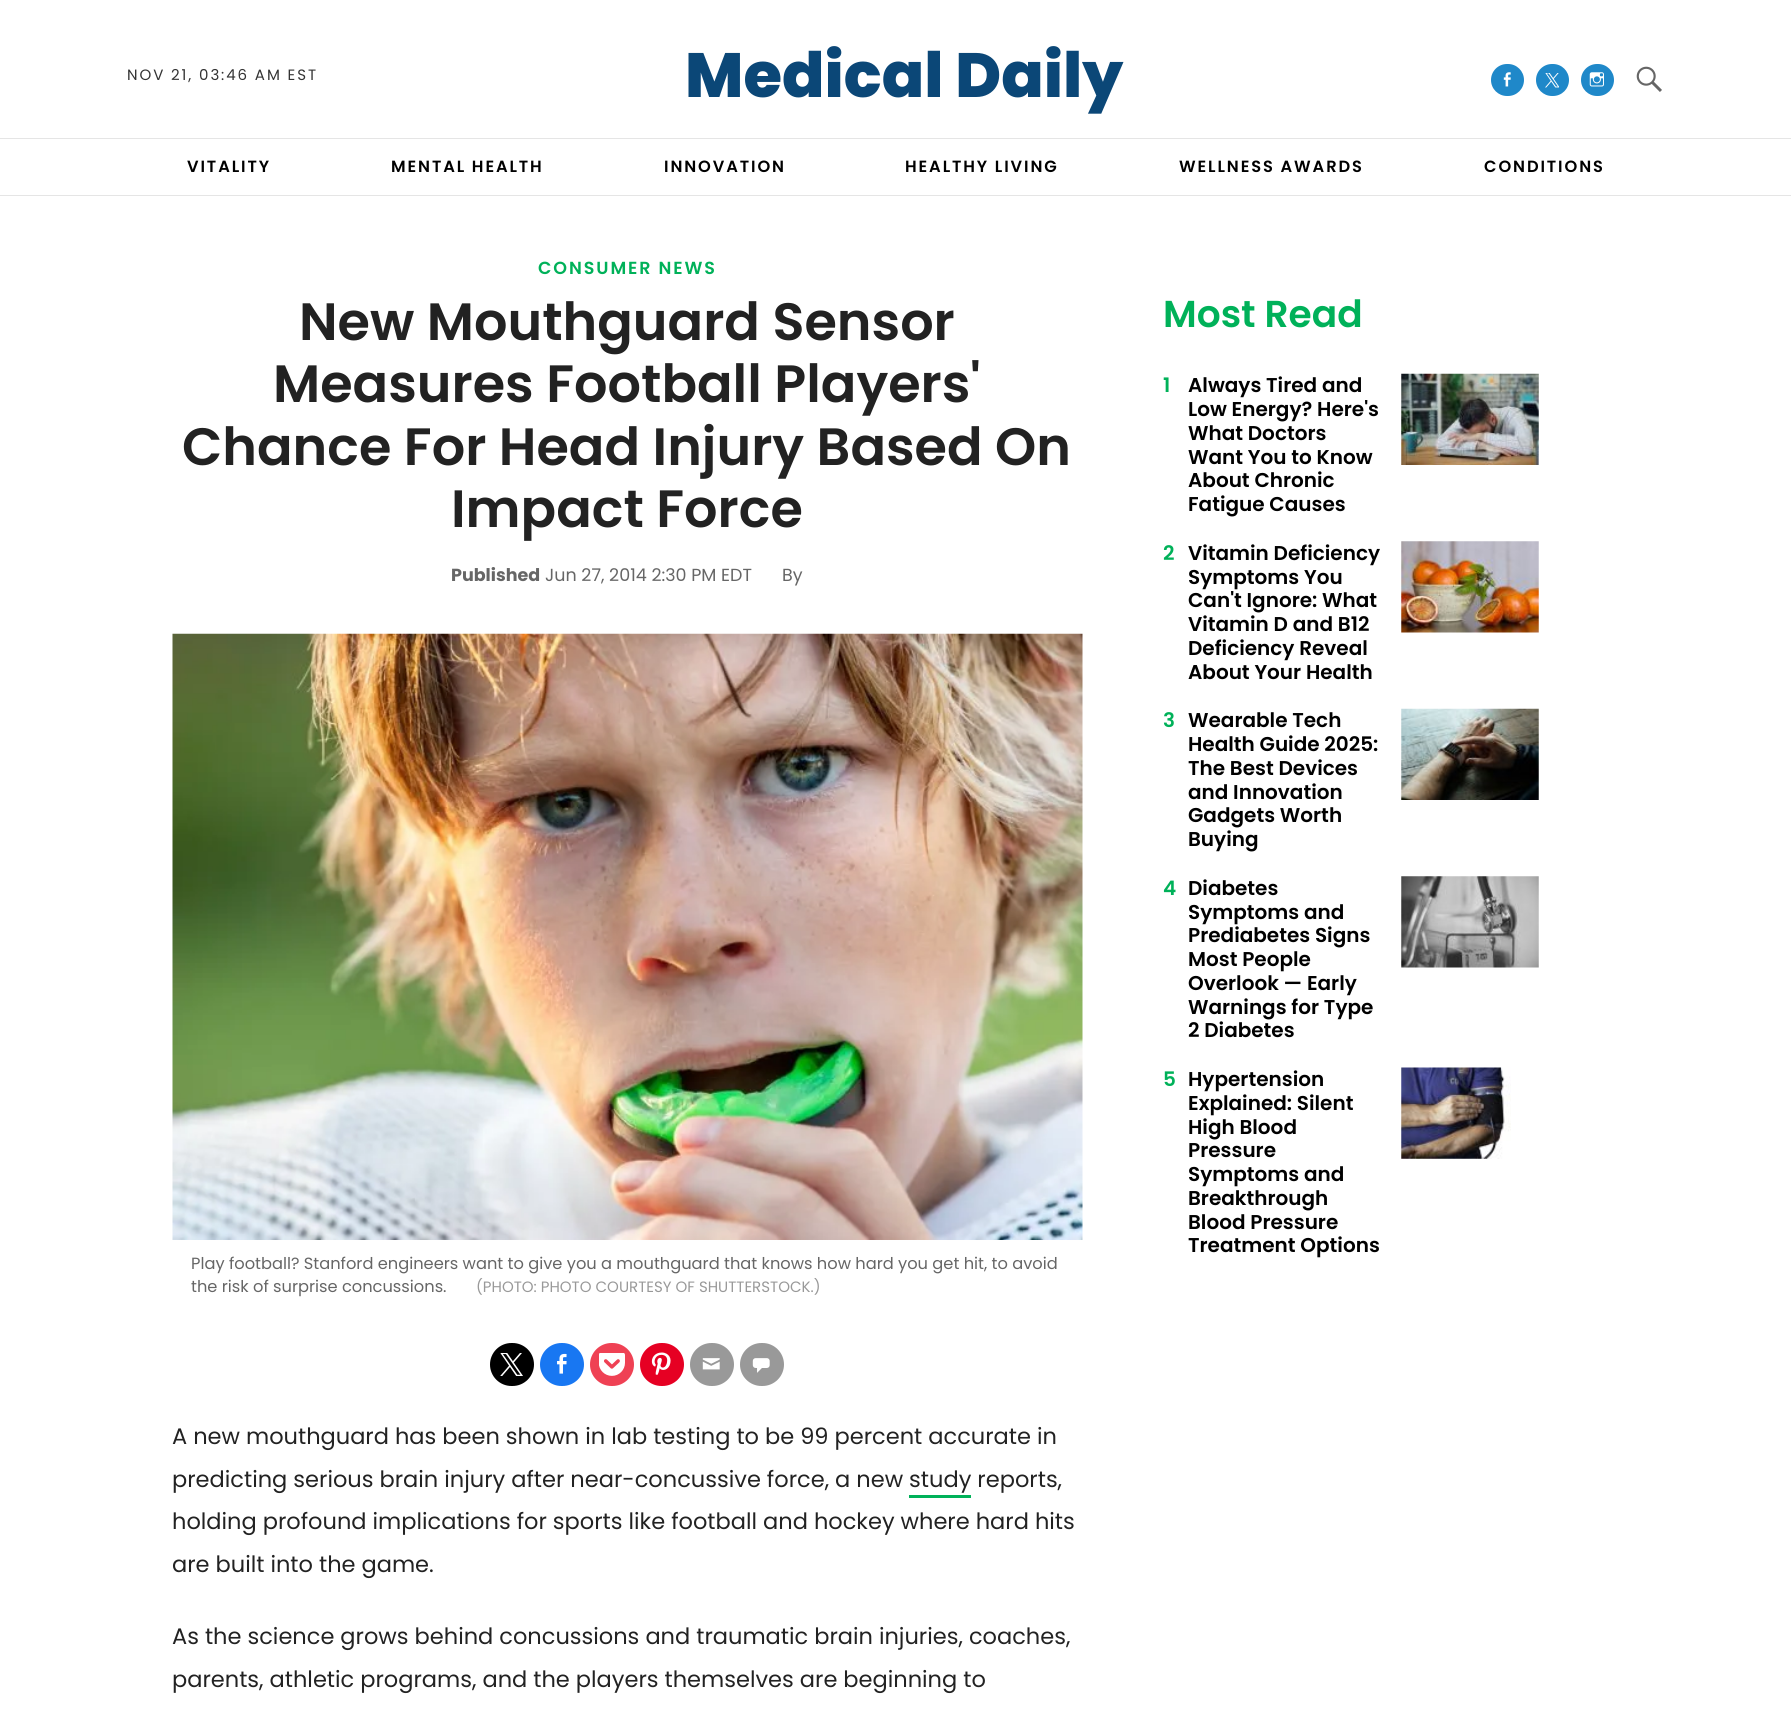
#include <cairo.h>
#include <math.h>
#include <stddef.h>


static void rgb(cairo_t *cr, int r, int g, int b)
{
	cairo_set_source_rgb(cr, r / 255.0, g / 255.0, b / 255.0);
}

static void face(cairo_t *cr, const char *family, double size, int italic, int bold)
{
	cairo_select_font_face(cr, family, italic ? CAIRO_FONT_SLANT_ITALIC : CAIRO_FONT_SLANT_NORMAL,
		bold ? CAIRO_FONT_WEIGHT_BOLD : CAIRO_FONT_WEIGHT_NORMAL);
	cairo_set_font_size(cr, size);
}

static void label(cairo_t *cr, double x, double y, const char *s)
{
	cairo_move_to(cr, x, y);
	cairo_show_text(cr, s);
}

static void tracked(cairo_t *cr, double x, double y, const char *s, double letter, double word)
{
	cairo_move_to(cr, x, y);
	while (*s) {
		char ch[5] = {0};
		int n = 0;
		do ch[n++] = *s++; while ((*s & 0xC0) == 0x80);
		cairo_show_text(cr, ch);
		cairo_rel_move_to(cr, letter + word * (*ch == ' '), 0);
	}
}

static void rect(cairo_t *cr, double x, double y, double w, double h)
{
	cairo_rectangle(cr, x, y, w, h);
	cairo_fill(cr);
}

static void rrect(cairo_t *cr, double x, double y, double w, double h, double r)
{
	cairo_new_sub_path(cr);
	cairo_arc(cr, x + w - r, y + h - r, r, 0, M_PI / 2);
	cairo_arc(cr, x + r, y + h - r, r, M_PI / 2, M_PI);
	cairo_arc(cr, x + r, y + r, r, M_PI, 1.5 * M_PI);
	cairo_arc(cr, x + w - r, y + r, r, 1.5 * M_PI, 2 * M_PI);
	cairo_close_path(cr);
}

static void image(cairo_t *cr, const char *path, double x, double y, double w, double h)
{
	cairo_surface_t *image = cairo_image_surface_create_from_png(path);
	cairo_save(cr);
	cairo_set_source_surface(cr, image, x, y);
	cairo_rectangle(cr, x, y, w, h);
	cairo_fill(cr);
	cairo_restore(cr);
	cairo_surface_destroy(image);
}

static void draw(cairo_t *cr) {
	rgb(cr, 255, 255, 255);
	cairo_paint(cr);
	rgb(cr, 229, 229, 229);
	rect(cr, 0, 195, 1791, 1);
	face(cr, "Poppins", 15, 0, 0);
	rgb(cr, 51, 51, 51);
	tracked(cr, 127, 80, "NOV 21, 03:46 AM EST", 1.9, 0);
	face(cr, "Poppins ExtraBold", 62.5, 0, 0);
	rgb(cr, 11, 71, 119);
	label(cr, 685, 97, "Medical Daily");
	rgb(cr, 31, 136, 201);
	rrect(cr, 1491, 64, 33, 32, 16);
	cairo_fill(cr);
	image(cr, "image0.png", 1503, 72, 8, 15);
	rrect(cr, 1536, 64, 33, 32, 16);
	cairo_fill(cr);
	image(cr, "image1.png", 1545, 73, 14, 15);
	rrect(cr, 1581, 64, 33, 32, 16);
	cairo_fill(cr);
	image(cr, "image2.png", 1589, 72, 15, 15);
	image(cr, "image3.png", 1636, 66, 26, 26);
	rgb(cr, 229, 229, 229);
	rect(cr, 0, 138, 1791, 1);
	face(cr, "Poppins SemiBold", 16.25, 0, 0);
	rgb(cr, 0, 0, 0);
	tracked(cr, 187, 172, "VITALITY", 1.9, 0);
	tracked(cr, 391, 172, "MENTAL HEALTH", 1.9, 0);
	tracked(cr, 664, 172, "INNOVATION", 1.9, 0);
	tracked(cr, 905, 172, "HEALTHY LIVING", 1.9, 0);
	tracked(cr, 1179, 172, "WELLNESS AWARDS", 1.9, 0);
	tracked(cr, 1484, 172, "CONDITIONS", 1.9, 0);
	face(cr, "Poppins SemiBold", 17.5, 0, 0);
	rgb(cr, 0, 177, 89);
	tracked(cr, 538, 274, "CONSUMER NEWS", 1.9, 0);
	face(cr, "Poppins SemiBold", 52.5, 0, 0);
	rgb(cr, 34, 34, 34);
	label(cr, 299, 340, "New Mouthguard Sensor");
	label(cr, 273, 402, "Measures Football Players'");
	label(cr, 182, 465, "Chance For Head Injury Based On");
	label(cr, 451, 527, "Impact Force");
	face(cr, "Poppins", 17.5, 0, 1);
	rgb(cr, 102, 102, 102);
	label(cr, 451, 581, "Published");
	face(cr, "Poppins", 17.5, 0, 0);
	label(cr, 545, 581, "Jun 27, 2014 2:30 PM EDT");
	label(cr, 782, 581, "By");
	image(cr, "image4.png", 172, 633, 911, 607);
	face(cr, "Poppins", 16.25, 0, 0);
	label(cr, 191, 1269, "Play football? Stanford engineers want to give you a mouthguard that knows how hard you get hit, to avoid");
	label(cr, 191, 1292, "the risk of surprise concussions.");
	face(cr, "Poppins", 15, 0, 0);
	rgb(cr, 153, 153, 153);
	label(cr, 476, 1292, "(PHOTO: PHOTO COURTESY OF SHUTTERSTOCK.)");
	rgb(cr, 0, 0, 0);
	rrect(cr, 490, 1343, 44, 43, 21.5);
	cairo_fill(cr);
	image(cr, "image5.png", 500, 1353, 23, 23);
	rgb(cr, 24, 119, 242);
	rrect(cr, 540, 1343, 44, 43, 21.5);
	cairo_fill(cr);
	image(cr, "image6.png", 557, 1353, 10, 21);
	rgb(cr, 239, 65, 84);
	rrect(cr, 590, 1343, 44, 43, 21.5);
	cairo_fill(cr);
	image(cr, "image7.png", 599, 1353, 26, 23);
	rgb(cr, 230, 0, 35);
	rrect(cr, 640, 1343, 44, 43, 21.5);
	cairo_fill(cr);
	image(cr, "image8.png", 651, 1352, 20, 23);
	rgb(cr, 153, 153, 153);
	rrect(cr, 690, 1343, 44, 43, 21.5);
	cairo_fill(cr);
	image(cr, "image9.png", 702, 1358, 18, 12);
	rrect(cr, 740, 1343, 44, 43, 21.5);
	cairo_fill(cr);
	image(cr, "image10.png", 752, 1358, 18, 15);
	face(cr, "Poppins", 22.5, 0, 0);
	rgb(cr, 34, 34, 34);
	label(cr, 172, 1444, "A new mouthguard has been shown in lab testing to be 99 percent accurate in");
	label(cr, 172, 1487, "predicting serious brain injury after near-concussive force, a new study reports,");
	rgb(cr, 0, 177, 89);
	rect(cr, 909, 1495, 62, 3);
	rgb(cr, 34, 34, 34);
	label(cr, 172, 1529, "holding profound implications for sports like football and hockey where hard hits");
	label(cr, 172, 1572, "are built into the game.");
	label(cr, 172, 1644, "As the science grows behind concussions and traumatic brain injuries, coaches,");
	label(cr, 172, 1687, "parents, athletic programs, and the players themselves are beginning to");
	face(cr, "Poppins SemiBold", 37.5, 0, 0);
	rgb(cr, 0, 177, 89);
	label(cr, 1163, 327, "Most Read");
	face(cr, "Poppins SemiBold", 20, 0, 0);
	label(cr, 1163, 392, "1");
	rgb(cr, 0, 0, 0);
	label(cr, 1188, 392, "Always Tired and");
	label(cr, 1188, 416, "Low Energy? Here's");
	label(cr, 1188, 440, "What Doctors");
	label(cr, 1188, 464, "Want You to Know");
	label(cr, 1188, 487, "About Chronic");
	label(cr, 1188, 511, "Fatigue Causes");
	image(cr, "image11.png", 1401, 373, 138, 92);
	rgb(cr, 0, 177, 89);
	label(cr, 1163, 560, "2");
	rgb(cr, 0, 0, 0);
	label(cr, 1188, 560, "Vitamin Deficiency");
	label(cr, 1188, 584, "Symptoms You");
	label(cr, 1188, 607, "Can't Ignore: What");
	label(cr, 1188, 631, "Vitamin D and B12");
	label(cr, 1188, 655, "Deficiency Reveal");
	label(cr, 1188, 679, "About Your Health");
	image(cr, "image12.png", 1401, 541, 138, 92);
	rgb(cr, 0, 177, 89);
	label(cr, 1163, 727, "3");
	rgb(cr, 0, 0, 0);
	label(cr, 1188, 727, "Wearable Tech");
	label(cr, 1188, 751, "Health Guide 2025:");
	label(cr, 1188, 775, "The Best Devices");
	label(cr, 1188, 799, "and Innovation");
	label(cr, 1188, 822, "Gadgets Worth");
	label(cr, 1188, 846, "Buying");
	image(cr, "image13.png", 1401, 708, 138, 92);
	rgb(cr, 0, 177, 89);
	label(cr, 1163, 895, "4");
	rgb(cr, 0, 0, 0);
	label(cr, 1188, 895, "Diabetes");
	label(cr, 1188, 919, "Symptoms and");
	label(cr, 1188, 942, "Prediabetes Signs");
	label(cr, 1188, 966, "Most People");
	label(cr, 1188, 990, "Overlook — Early");
	label(cr, 1188, 1014, "Warnings for Type");
	label(cr, 1188, 1037, "2 Diabetes");
	image(cr, "image14.png", 1401, 876, 138, 92);
	rgb(cr, 0, 177, 89);
	label(cr, 1163, 1086, "5");
	rgb(cr, 0, 0, 0);
	label(cr, 1188, 1086, "Hypertension");
	label(cr, 1188, 1110, "Explained: Silent");
	label(cr, 1188, 1134, "High Blood");
	label(cr, 1188, 1157, "Pressure");
	label(cr, 1188, 1181, "Symptoms and");
	label(cr, 1188, 1205, "Breakthrough");
	label(cr, 1188, 1229, "Blood Pressure");
	label(cr, 1188, 1252, "Treatment Options");
	image(cr, "image15.png", 1401, 1067, 110, 92);
}

int main(void) {
	cairo_surface_t *surface = cairo_image_surface_create(CAIRO_FORMAT_RGB24, 1791, 1724);
	cairo_t *cr = cairo_create(surface);
	cairo_font_options_t *options = cairo_font_options_create();
	cairo_font_options_set_hint_metrics(options, CAIRO_HINT_METRICS_OFF);
	cairo_font_options_set_hint_style(options, CAIRO_HINT_STYLE_NONE);
	cairo_set_font_options(cr, options);
	cairo_set_miter_limit(cr, 4);
	draw(cr);
	cairo_surface_write_to_png(surface, "render.png");
	cairo_font_options_destroy(options);
	cairo_destroy(cr);
	cairo_surface_destroy(surface);
	return 0;
}
